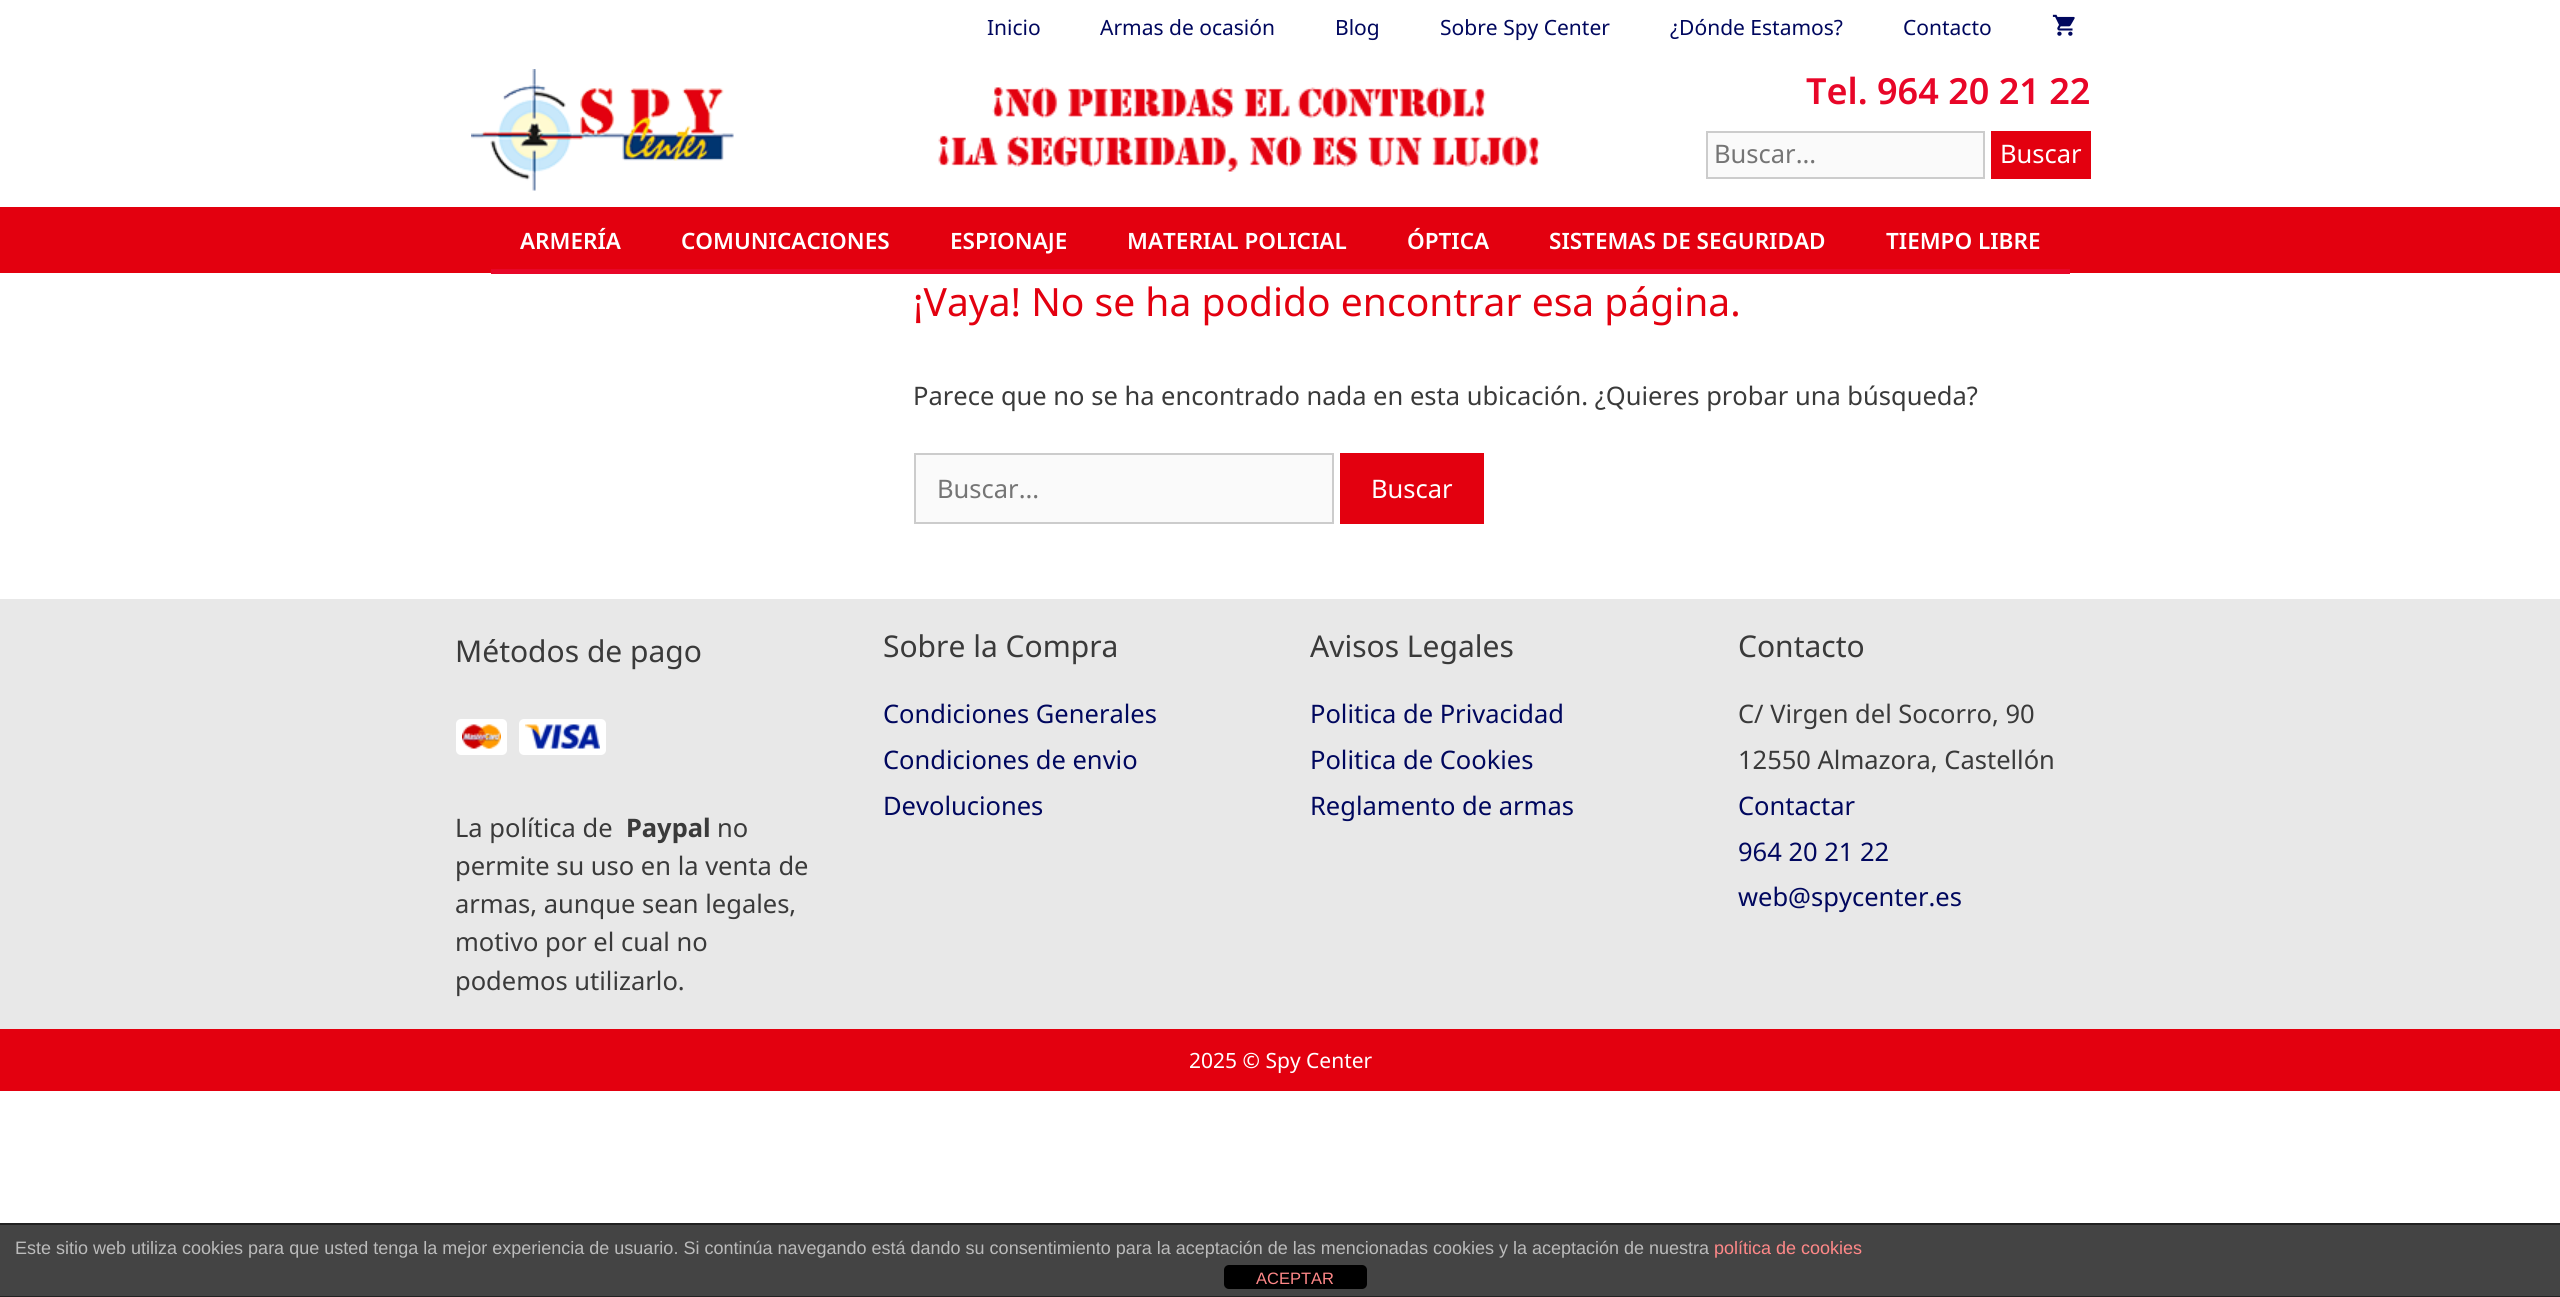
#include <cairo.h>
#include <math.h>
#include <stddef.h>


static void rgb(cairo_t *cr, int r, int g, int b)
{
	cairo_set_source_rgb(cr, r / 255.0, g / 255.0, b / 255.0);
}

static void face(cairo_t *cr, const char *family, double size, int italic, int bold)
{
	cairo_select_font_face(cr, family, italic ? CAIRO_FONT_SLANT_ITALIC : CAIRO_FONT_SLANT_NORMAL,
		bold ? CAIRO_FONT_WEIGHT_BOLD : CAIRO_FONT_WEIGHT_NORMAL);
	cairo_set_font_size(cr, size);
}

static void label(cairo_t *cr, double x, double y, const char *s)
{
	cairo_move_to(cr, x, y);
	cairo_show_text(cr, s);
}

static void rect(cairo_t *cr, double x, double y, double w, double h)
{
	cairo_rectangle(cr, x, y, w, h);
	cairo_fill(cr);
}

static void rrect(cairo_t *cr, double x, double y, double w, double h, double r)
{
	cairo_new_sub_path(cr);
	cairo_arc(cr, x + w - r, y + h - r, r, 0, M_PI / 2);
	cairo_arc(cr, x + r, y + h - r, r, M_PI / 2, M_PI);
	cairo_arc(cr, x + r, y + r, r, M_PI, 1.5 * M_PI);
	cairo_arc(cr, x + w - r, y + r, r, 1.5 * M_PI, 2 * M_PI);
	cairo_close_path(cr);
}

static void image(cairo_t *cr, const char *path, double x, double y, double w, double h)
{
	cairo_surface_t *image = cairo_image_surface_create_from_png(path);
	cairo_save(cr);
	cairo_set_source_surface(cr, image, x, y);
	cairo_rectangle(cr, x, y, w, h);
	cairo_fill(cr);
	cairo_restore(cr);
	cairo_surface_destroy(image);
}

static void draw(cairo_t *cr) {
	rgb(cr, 255, 255, 255);
	cairo_paint(cr);
	face(cr, "Noto Sans", 21, 0, 0);
	rgb(cr, 0, 7, 94);
	label(cr, 987, 35, "Inicio");
	label(cr, 1100, 35, "Armas de ocasión");
	label(cr, 1335, 35, "Blog");
	label(cr, 1440, 35, "Sobre Spy Center");
	label(cr, 1670, 35, "¿Dónde Estamos?");
	label(cr, 1903, 35, "Contacto");
	image(cr, "image0.png", 2052, 14, 23, 22);
	image(cr, "image1.png", 471, 69, 263, 122);
	image(cr, "image2.png", 938, 87, 602, 85);
	face(cr, "Noto Sans SemiBold", 36, 0, 0);
	rgb(cr, 232, 6, 40);
	label(cr, 1806, 104, "Tel. 964 20 21 22");
	rgb(cr, 250, 250, 250);
	cairo_rectangle(cr, 1707, 132, 277, 46);
	cairo_fill_preserve(cr);
	rgb(cr, 204, 204, 204);
	cairo_stroke(cr);
	face(cr, "Noto Sans", 25.5, 0, 0);
	rgb(cr, 117, 117, 117);
	label(cr, 1714, 163, "Buscar...");
	rgb(cr, 227, 0, 15);
	rect(cr, 1991, 131, 100, 48);
	rgb(cr, 255, 255, 255);
	label(cr, 2000, 163, "Buscar");
	rgb(cr, 227, 0, 15);
	rect(cr, 0, 207, 2560, 66);
	rgb(cr, 232, 6, 40);
	rect(cr, 491, 269, 1579, 5);
	face(cr, "Noto Sans SemiBold", 22.5, 0, 0);
	rgb(cr, 255, 255, 255);
	label(cr, 520, 249, "ARMERÍA");
	label(cr, 681, 249, "COMUNICACIONES");
	label(cr, 950, 249, "ESPIONAJE");
	label(cr, 1127, 249, "MATERIAL POLICIAL");
	label(cr, 1407, 249, "ÓPTICA");
	label(cr, 1549, 249, "SISTEMAS DE SEGURIDAD");
	label(cr, 1886, 249, "TIEMPO LIBRE");
	face(cr, "Noto Sans", 39, 0, 0);
	rgb(cr, 227, 0, 15);
	label(cr, 913, 316, "¡Vaya! No se ha podido encontrar esa página.");
	face(cr, "Noto Sans", 25.5, 0, 0);
	rgb(cr, 58, 58, 58);
	label(cr, 913, 405, "Parece que no se ha encontrado nada en esta ubicación. ¿Quieres probar una búsqueda?");
	rgb(cr, 250, 250, 250);
	cairo_rectangle(cr, 915, 454, 418, 69);
	cairo_fill_preserve(cr);
	rgb(cr, 204, 204, 204);
	cairo_stroke(cr);
	rgb(cr, 117, 117, 117);
	label(cr, 937, 498, "Buscar...");
	rgb(cr, 227, 0, 15);
	rect(cr, 1340, 453, 144, 71);
	rgb(cr, 255, 255, 255);
	label(cr, 1371, 498, "Buscar");
	rgb(cr, 232, 232, 232);
	rect(cr, 0, 599, 2560, 430);
	face(cr, "Noto Sans", 30, 0, 0);
	rgb(cr, 58, 58, 58);
	label(cr, 455, 662, "Métodos de pago");
	rgb(cr, 255, 255, 255);
	rrect(cr, 456, 719, 51, 36, 5);
	cairo_fill(cr);
	image(cr, "image3.png", 462, 724, 39, 25);
	rrect(cr, 519, 719, 87, 36, 5);
	cairo_fill(cr);
	image(cr, "image4.png", 525, 724, 75, 25);
	face(cr, "Noto Sans", 25.5, 0, 0);
	rgb(cr, 58, 58, 58);
	label(cr, 455, 837, "La política de");
	face(cr, "Noto Sans", 25.5, 0, 1);
	label(cr, 626, 837, "Paypal");
	face(cr, "Noto Sans", 25.5, 0, 0);
	label(cr, 717, 837, "no");
	label(cr, 455, 875, "permite su uso en la venta de");
	label(cr, 455, 913, "armas, aunque sean legales,");
	label(cr, 455, 951, "motivo por el cual no");
	label(cr, 455, 990, "podemos utilizarlo.");
	face(cr, "Noto Sans", 30, 0, 0);
	label(cr, 883, 657, "Sobre la Compra");
	face(cr, "Noto Sans", 25.5, 0, 0);
	rgb(cr, 0, 7, 94);
	label(cr, 883, 723, "Condiciones Generales");
	label(cr, 883, 769, "Condiciones de envio");
	label(cr, 883, 815, "Devoluciones");
	face(cr, "Noto Sans", 30, 0, 0);
	rgb(cr, 58, 58, 58);
	label(cr, 1310, 657, "Avisos Legales");
	face(cr, "Noto Sans", 25.5, 0, 0);
	rgb(cr, 0, 7, 94);
	label(cr, 1310, 723, "Politica de Privacidad");
	label(cr, 1310, 769, "Politica de Cookies");
	label(cr, 1310, 815, "Reglamento de armas");
	face(cr, "Noto Sans", 30, 0, 0);
	rgb(cr, 58, 58, 58);
	label(cr, 1738, 657, "Contacto");
	face(cr, "Noto Sans", 25.5, 0, 0);
	label(cr, 1738, 723, "C/ Virgen del Socorro, 90");
	label(cr, 1738, 769, "12550 Almazora, Castellón");
	rgb(cr, 0, 7, 94);
	label(cr, 1738, 815, "Contactar");
	label(cr, 1738, 861, "964 20 21 22");
	label(cr, 1738, 906, "web@spycenter.es");
	rgb(cr, 227, 0, 15);
	rect(cr, 0, 1029, 2560, 62);
	face(cr, "Noto Sans", 21, 0, 0);
	rgb(cr, 255, 255, 255);
	label(cr, 1189, 1068, "2025 © Spy Center");
	rgb(cr, 68, 68, 68);
	rect(cr, 0, 1225, 2560, 71);
	rgb(cr, 34, 34, 34);
	rect(cr, 0, 1223, 2560, 2);
	rect(cr, 0, 1296, 2560, 1);
	face(cr, "Liberation Sans", 18, 0, 0);
	rgb(cr, 187, 187, 187);
	label(cr, 15, 1254, "Este sitio web utiliza cookies para que usted tenga la mejor experiencia de usuario. Si continúa navegando está dando su consentimiento para la aceptación de las mencionadas cookies y la aceptación de nuestra");
	rgb(cr, 255, 136, 136);
	label(cr, 1714, 1254, "política de cookies");
	rgb(cr, 0, 0, 0);
	rrect(cr, 1224, 1265, 143, 24, 5);
	cairo_fill(cr);
	face(cr, "Liberation Sans", 16.5, 0, 0);
	rgb(cr, 255, 136, 136);
	label(cr, 1256, 1284, "ACEPTAR");
}

int main(void) {
	cairo_surface_t *surface = cairo_image_surface_create(CAIRO_FORMAT_RGB24, 2560, 1297);
	cairo_t *cr = cairo_create(surface);
	cairo_font_options_t *options = cairo_font_options_create();
	cairo_font_options_set_hint_metrics(options, CAIRO_HINT_METRICS_OFF);
	cairo_font_options_set_hint_style(options, CAIRO_HINT_STYLE_NONE);
	cairo_set_font_options(cr, options);
	cairo_set_miter_limit(cr, 4);
	draw(cr);
	cairo_surface_write_to_png(surface, "render.png");
	cairo_font_options_destroy(options);
	cairo_destroy(cr);
	cairo_surface_destroy(surface);
	return 0;
}
